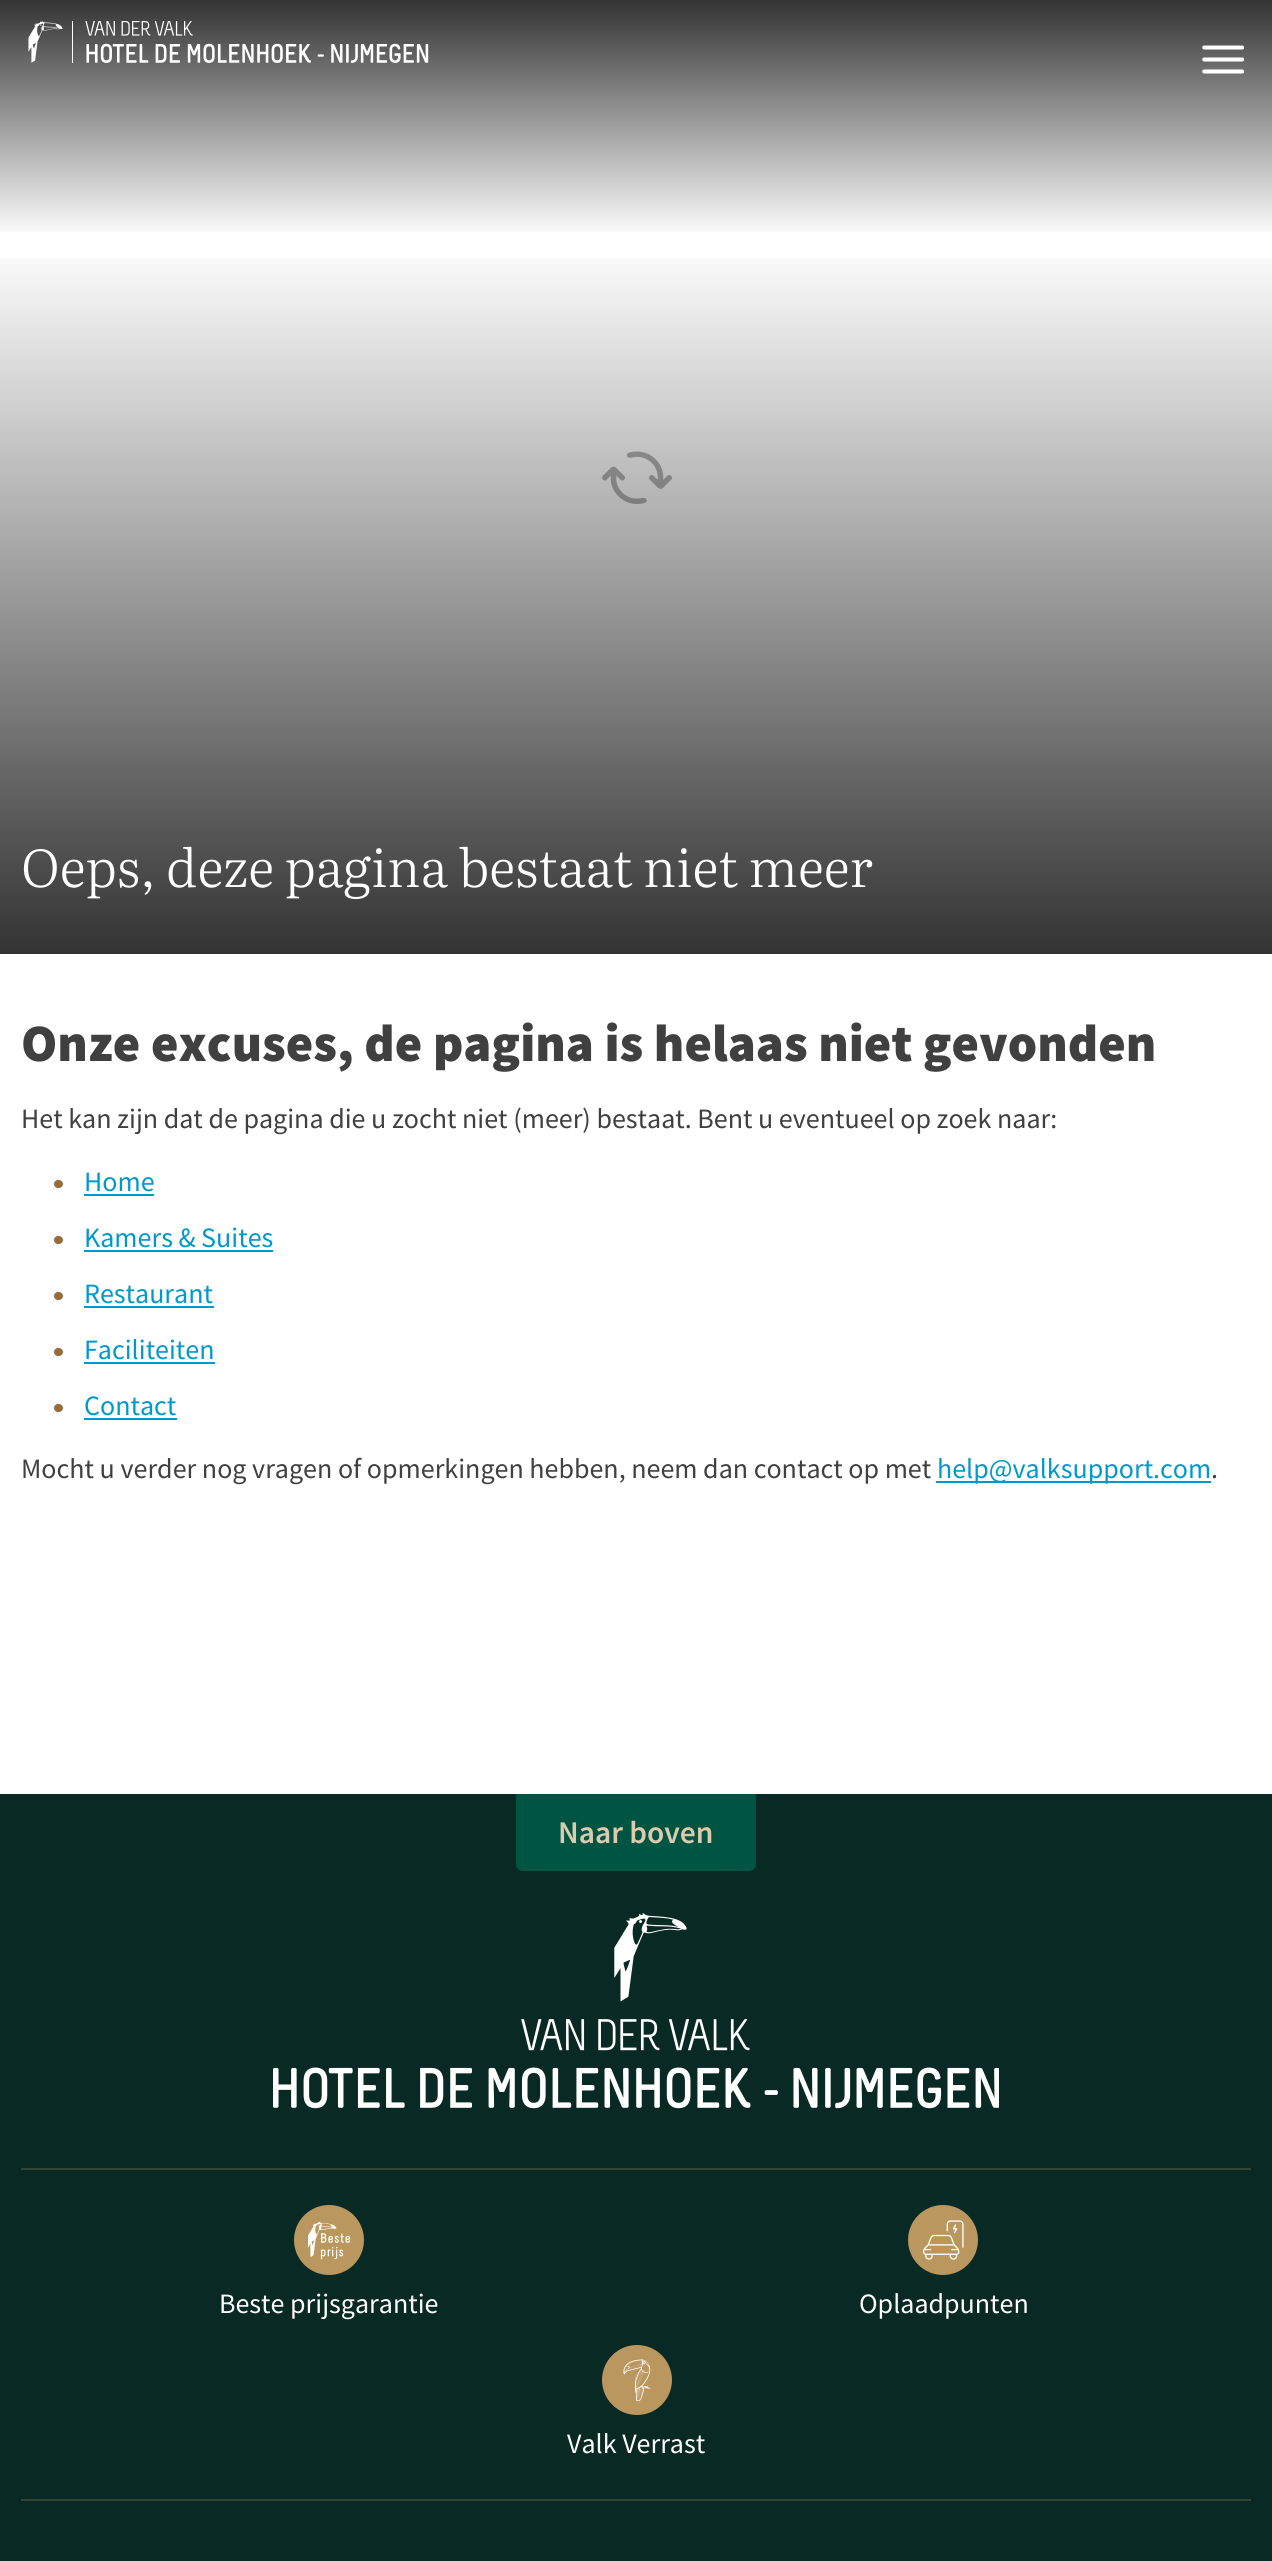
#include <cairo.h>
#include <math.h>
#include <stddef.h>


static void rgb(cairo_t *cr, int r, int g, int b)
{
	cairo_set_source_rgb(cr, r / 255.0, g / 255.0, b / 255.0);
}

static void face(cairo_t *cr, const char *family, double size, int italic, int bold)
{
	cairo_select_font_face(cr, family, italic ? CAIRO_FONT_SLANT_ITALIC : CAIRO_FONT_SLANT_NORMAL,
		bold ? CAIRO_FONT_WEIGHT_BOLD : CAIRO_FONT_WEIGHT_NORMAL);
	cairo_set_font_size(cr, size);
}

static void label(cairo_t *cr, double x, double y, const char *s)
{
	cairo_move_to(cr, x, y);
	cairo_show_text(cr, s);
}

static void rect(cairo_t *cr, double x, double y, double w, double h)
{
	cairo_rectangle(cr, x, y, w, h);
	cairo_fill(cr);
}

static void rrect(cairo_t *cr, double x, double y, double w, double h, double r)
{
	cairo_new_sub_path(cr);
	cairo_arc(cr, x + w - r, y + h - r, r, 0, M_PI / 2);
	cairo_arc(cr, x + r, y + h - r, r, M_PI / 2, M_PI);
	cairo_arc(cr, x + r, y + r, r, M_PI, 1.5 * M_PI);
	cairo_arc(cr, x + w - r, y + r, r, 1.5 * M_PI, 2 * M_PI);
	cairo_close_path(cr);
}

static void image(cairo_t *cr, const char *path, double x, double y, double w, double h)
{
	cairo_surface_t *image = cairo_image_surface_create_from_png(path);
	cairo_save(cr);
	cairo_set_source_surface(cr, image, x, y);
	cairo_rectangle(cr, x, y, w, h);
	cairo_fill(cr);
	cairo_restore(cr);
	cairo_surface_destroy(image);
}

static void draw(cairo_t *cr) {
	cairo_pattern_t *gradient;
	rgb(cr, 255, 255, 255);
	cairo_paint(cr);
	gradient = cairo_pattern_create_linear(636, 0, 636, 954);
	cairo_pattern_add_color_stop_rgba(gradient, 0, 0, 0, 0, 0.8);
	cairo_pattern_add_color_stop_rgba(gradient, 0.25, 0, 0, 0, 0);
	cairo_set_source(cr, gradient);
	cairo_pattern_destroy(gradient);
	rect(cr, 0, 0, 1272, 232);
	image(cr, "image0.png", 28, 21, 401, 42);
	image(cr, "image1.png", 1202, 45, 42, 29);
	image(cr, "image2.png", 602, 451, 70, 53);
	gradient = cairo_pattern_create_linear(636, 954, 636, 0);
	cairo_pattern_add_color_stop_rgba(gradient, 0, 0, 0, 0, 0.8);
	cairo_pattern_add_color_stop_rgba(gradient, 0.75, 0, 0, 0, 0);
	cairo_set_source(cr, gradient);
	cairo_pattern_destroy(gradient);
	rect(cr, 0, 258, 1272, 696);
	face(cr, "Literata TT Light", 52.5, 0, 0);
	rgb(cr, 255, 255, 255);
	label(cr, 21, 887, "Oeps, deze pagina bestaat niet meer");
	face(cr, "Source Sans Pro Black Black", 52.5, 0, 0);
	rgb(cr, 64, 64, 64);
	label(cr, 21, 1061, "Onze excuses, de pagina is helaas niet gevonden");
	face(cr, "Source Sans Pro", 28, 0, 0);
	label(cr, 21, 1128, "Het kan zijn dat de pagina die u zocht niet (meer) bestaat. Bent u eventueel op zoek naar:");
	rgb(cr, 147, 112, 62);
	rrect(cr, 54, 1180, 9, 8, 4);
	cairo_fill(cr);
	rgb(cr, 0, 153, 204);
	label(cr, 84, 1191, "Home");
	rect(cr, 84, 1194, 70, 2);
	rgb(cr, 147, 112, 62);
	rrect(cr, 54, 1236, 9, 8, 4);
	cairo_fill(cr);
	rgb(cr, 0, 153, 204);
	label(cr, 84, 1247, "Kamers & Suites");
	rect(cr, 84, 1250, 189, 2);
	rgb(cr, 147, 112, 62);
	rrect(cr, 54, 1292, 9, 8, 4);
	cairo_fill(cr);
	rgb(cr, 0, 153, 204);
	label(cr, 84, 1303, "Restaurant");
	rect(cr, 84, 1306, 130, 2);
	rgb(cr, 147, 112, 62);
	rrect(cr, 54, 1348, 9, 8, 4);
	cairo_fill(cr);
	rgb(cr, 0, 153, 204);
	label(cr, 84, 1359, "Faciliteiten");
	rect(cr, 84, 1362, 131, 2);
	rgb(cr, 147, 112, 62);
	rrect(cr, 54, 1404, 9, 8, 4);
	cairo_fill(cr);
	rgb(cr, 0, 153, 204);
	label(cr, 84, 1415, "Contact");
	rect(cr, 84, 1418, 93, 2);
	rgb(cr, 64, 64, 64);
	label(cr, 21, 1478, "Mocht u verder nog vragen of opmerkingen hebben, neem dan contact op met");
	rgb(cr, 0, 153, 204);
	rect(cr, 936, 1481, 275, 2);
	label(cr, 937, 1478, "help@valksupport.com");
	rgb(cr, 64, 64, 64);
	label(cr, 1211, 1478, ".");
	rgb(cr, 9, 41, 36);
	rect(cr, 0, 1794, 1272, 767);
	rgb(cr, 0, 84, 66);
	cairo_new_path(cr);
	cairo_move_to(cr, 516, 1794);
	cairo_line_to(cr, 756, 1794);
	cairo_line_to(cr, 756, 1864);
	cairo_curve_to(cr, 756, 1868, 753, 1871, 749, 1871);
	cairo_line_to(cr, 523, 1871);
	cairo_curve_to(cr, 519, 1871, 516, 1868, 516, 1864);
	cairo_close_path(cr);
	cairo_fill(cr);
	face(cr, "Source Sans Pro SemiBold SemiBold", 31.5, 0, 0);
	rgb(cr, 220, 203, 175);
	label(cr, 558, 1843, "Naar boven");
	image(cr, "image3.png", 273, 1913, 726, 196);
	rgb(cr, 53, 69, 51);
	rect(cr, 21, 2168, 1230, 2);
	rgb(cr, 186, 151, 95);
	cairo_arc(cr, 329, 2240, 35, 0, 2 * M_PI);
	cairo_fill(cr);
	image(cr, "image4.png", 308, 2221, 42, 39);
	face(cr, "Source Sans Pro", 28, 0, 0);
	rgb(cr, 255, 255, 255);
	label(cr, 219, 2313, "Beste prijsgarantie");
	rgb(cr, 186, 151, 95);
	cairo_new_path(cr);
	cairo_arc(cr, 943, 2240, 35, 0, 2 * M_PI);
	cairo_fill(cr);
	image(cr, "image5.png", 922, 2220, 42, 40);
	rgb(cr, 255, 255, 255);
	label(cr, 859, 2313, "Oplaadpunten");
	rgb(cr, 186, 151, 95);
	cairo_new_path(cr);
	cairo_arc(cr, 637, 2380, 35, 0, 2 * M_PI);
	cairo_fill(cr);
	image(cr, "image6.png", 623, 2359, 28, 42);
	rgb(cr, 255, 255, 255);
	label(cr, 567, 2453, "Valk Verrast");
	rgb(cr, 53, 69, 51);
	rect(cr, 21, 2499, 1230, 2);
}

int main(void) {
	cairo_surface_t *surface = cairo_image_surface_create(CAIRO_FORMAT_RGB24, 1272, 2561);
	cairo_t *cr = cairo_create(surface);
	cairo_font_options_t *options = cairo_font_options_create();
	cairo_font_options_set_hint_metrics(options, CAIRO_HINT_METRICS_OFF);
	cairo_font_options_set_hint_style(options, CAIRO_HINT_STYLE_NONE);
	cairo_set_font_options(cr, options);
	cairo_set_miter_limit(cr, 4);
	draw(cr);
	cairo_surface_write_to_png(surface, "render.png");
	cairo_font_options_destroy(options);
	cairo_destroy(cr);
	cairo_surface_destroy(surface);
	return 0;
}
